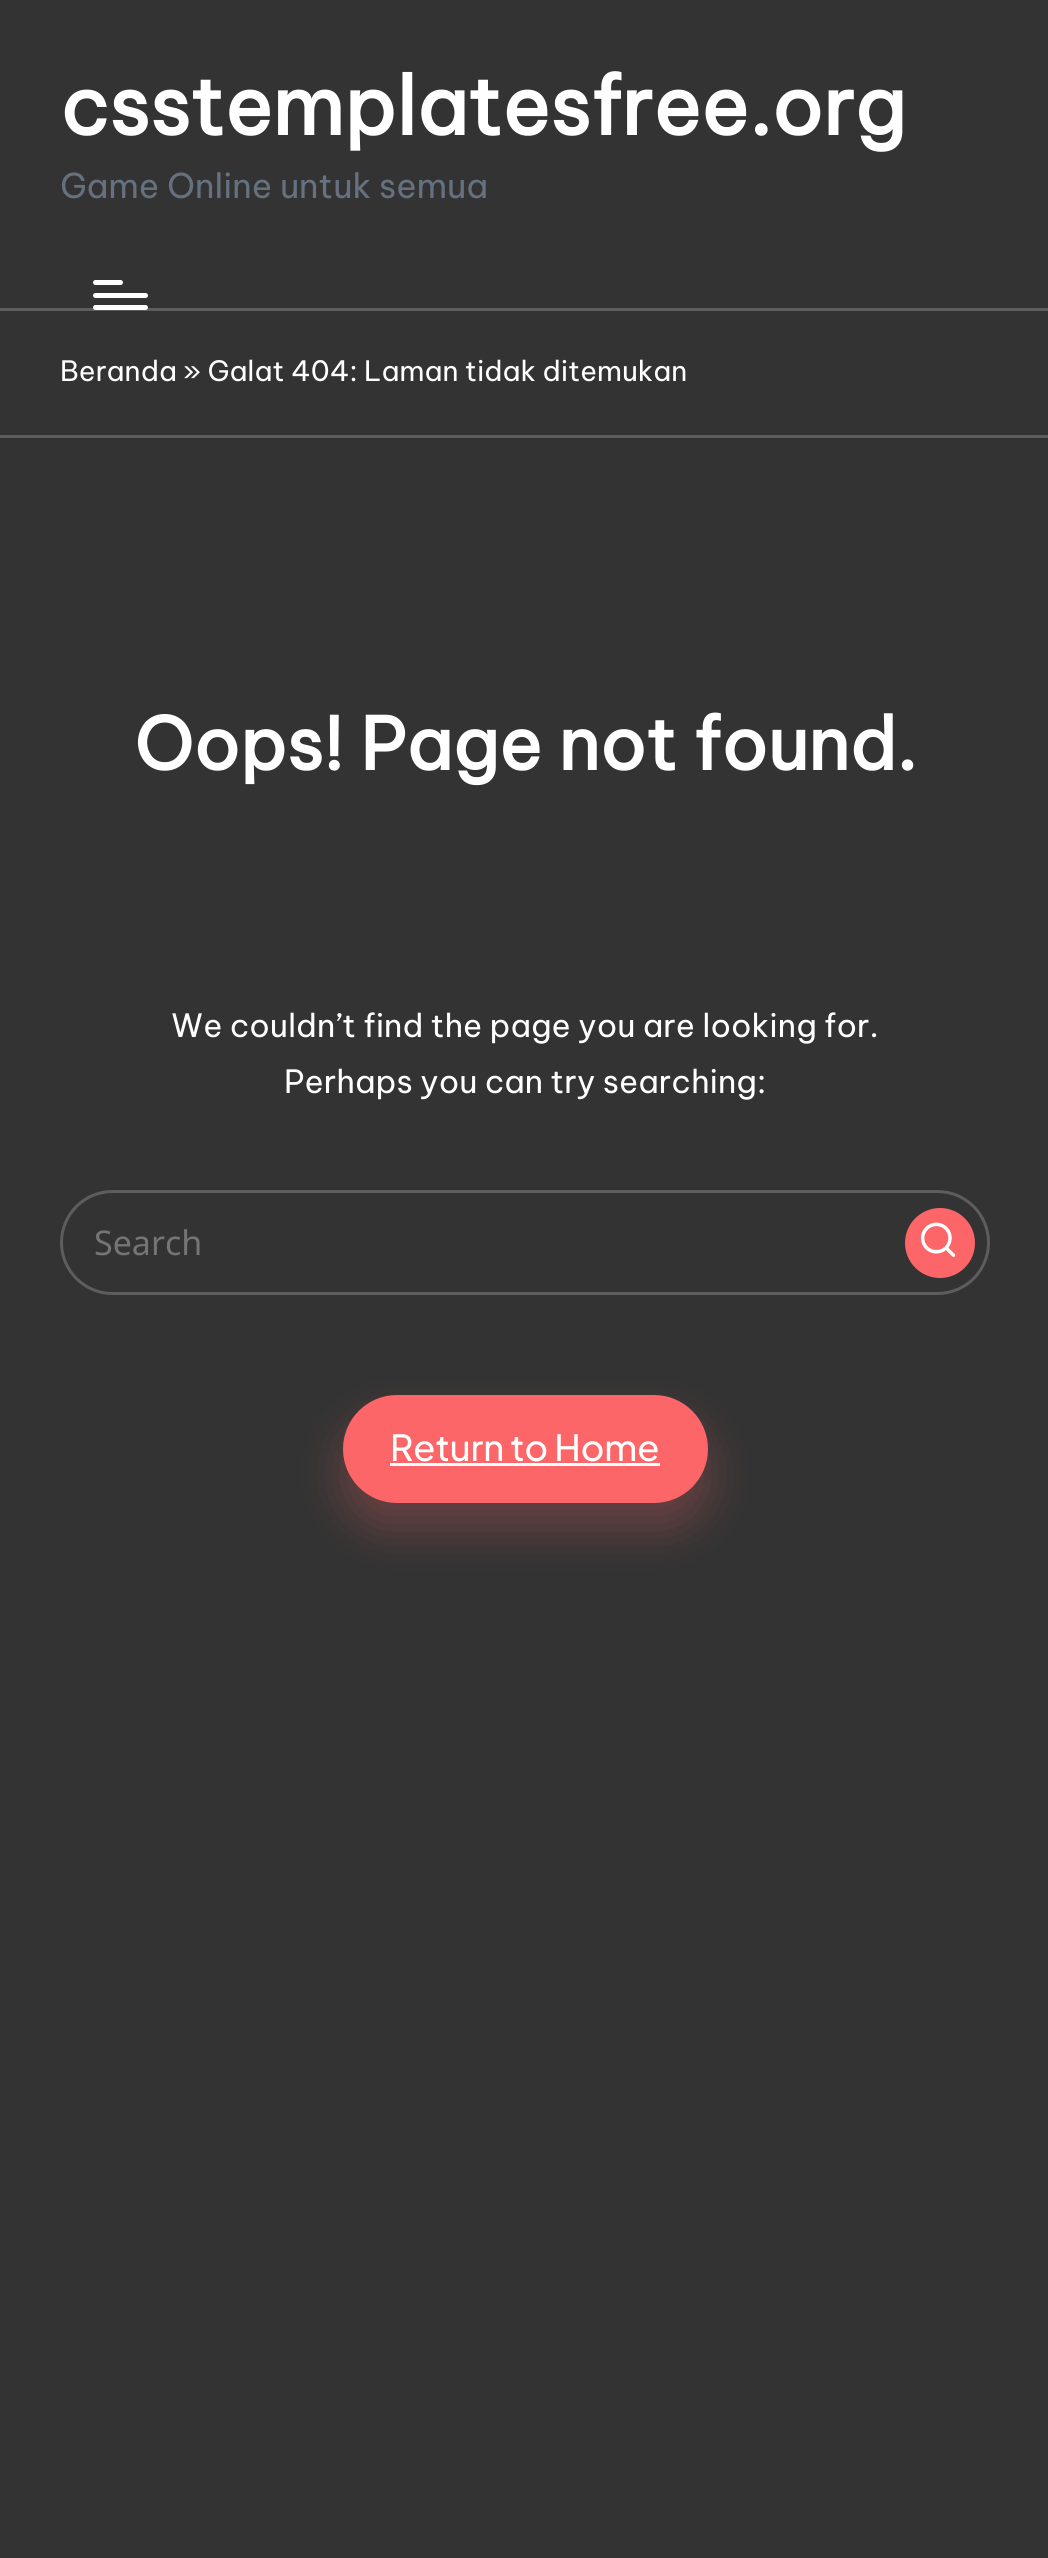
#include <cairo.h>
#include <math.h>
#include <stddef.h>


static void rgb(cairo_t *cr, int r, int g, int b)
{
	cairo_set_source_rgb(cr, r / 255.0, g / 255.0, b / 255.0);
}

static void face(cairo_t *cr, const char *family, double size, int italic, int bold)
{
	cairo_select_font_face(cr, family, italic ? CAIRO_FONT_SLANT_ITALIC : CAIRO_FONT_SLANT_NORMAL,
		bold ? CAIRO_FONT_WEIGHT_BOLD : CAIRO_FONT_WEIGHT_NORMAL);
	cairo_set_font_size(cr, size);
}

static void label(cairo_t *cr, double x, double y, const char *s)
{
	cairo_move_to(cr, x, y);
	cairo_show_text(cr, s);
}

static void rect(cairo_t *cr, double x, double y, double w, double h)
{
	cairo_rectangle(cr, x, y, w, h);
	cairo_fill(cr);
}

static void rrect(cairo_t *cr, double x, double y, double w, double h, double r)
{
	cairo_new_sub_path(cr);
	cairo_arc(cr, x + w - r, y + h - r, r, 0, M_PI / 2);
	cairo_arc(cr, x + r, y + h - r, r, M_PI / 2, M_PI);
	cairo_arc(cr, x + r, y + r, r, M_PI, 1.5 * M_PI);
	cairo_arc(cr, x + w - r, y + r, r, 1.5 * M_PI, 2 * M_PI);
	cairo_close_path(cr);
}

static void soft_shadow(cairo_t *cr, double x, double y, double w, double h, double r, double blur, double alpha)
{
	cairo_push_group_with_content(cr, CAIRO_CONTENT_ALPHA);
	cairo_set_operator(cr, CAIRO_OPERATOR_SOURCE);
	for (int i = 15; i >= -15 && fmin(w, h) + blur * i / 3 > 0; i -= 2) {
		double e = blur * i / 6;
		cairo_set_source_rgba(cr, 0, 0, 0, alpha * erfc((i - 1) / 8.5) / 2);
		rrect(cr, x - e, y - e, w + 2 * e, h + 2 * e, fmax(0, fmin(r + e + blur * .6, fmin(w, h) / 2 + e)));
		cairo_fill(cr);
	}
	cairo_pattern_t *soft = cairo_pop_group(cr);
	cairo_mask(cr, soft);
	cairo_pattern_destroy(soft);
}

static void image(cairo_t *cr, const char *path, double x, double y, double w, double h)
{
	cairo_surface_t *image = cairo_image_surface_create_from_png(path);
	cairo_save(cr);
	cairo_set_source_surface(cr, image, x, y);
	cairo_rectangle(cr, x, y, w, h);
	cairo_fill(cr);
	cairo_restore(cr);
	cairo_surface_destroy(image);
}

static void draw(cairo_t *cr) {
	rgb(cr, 51, 51, 51);
	cairo_paint(cr);
	face(cr, "Be Vietnam Pro", 80, 0, 1);
	rgb(cr, 255, 255, 255);
	label(cr, 60, 135, "csstemplatesfree.org");
	face(cr, "Be Vietnam Pro", 34, 0, 0);
	rgb(cr, 102, 113, 127);
	label(cr, 60, 198, "Game Online untuk semua");
	rgb(cr, 255, 255, 255);
	rrect(cr, 93, 293, 55, 5, 2.5);
	cairo_fill(cr);
	rrect(cr, 93, 280, 30, 5, 2.5);
	cairo_fill(cr);
	rgb(cr, 93, 93, 93);
	rect(cr, 0, 308, 1048, 3);
	rgb(cr, 255, 255, 255);
	rrect(cr, 93, 305, 55, 5, 2.5);
	cairo_fill(cr);
	rgb(cr, 93, 93, 93);
	rect(cr, 0, 435, 1048, 3);
	face(cr, "Be Vietnam Pro", 28, 0, 0);
	rgb(cr, 255, 255, 255);
	label(cr, 60, 381, "Beranda");
	label(cr, 183, 381, "» Galat 404: Laman tidak ditemukan");
	face(cr, "Be Vietnam Pro", 72, 0, 1);
	label(cr, 134, 770, "Oops! Page not found.");
	face(cr, "Be Vietnam Pro", 32, 0, 0);
	label(cr, 171, 1037, "We couldn’t find the page you are looking for.");
	label(cr, 284, 1093, "Perhaps you can try searching:");
	rrect(cr, 61.5, 1191.5, 927, 102, 51);
	rgb(cr, 93, 93, 93);
	cairo_set_line_width(cr, 3);
	cairo_stroke(cr);
	face(cr, "Noto Sans", 34, 0, 0);
	rgb(cr, 117, 117, 117);
	label(cr, 94, 1255, "Search");
	rgb(cr, 252, 102, 104);
	cairo_new_path(cr);
	cairo_arc(cr, 940, 1243, 35, 0, 2 * M_PI);
	cairo_fill(cr);
	image(cr, "image0.png", 920, 1222, 36, 35);
	rgb(cr, 252, 102, 104);
	soft_shadow(cr, 343, 1420, 365, 108, 54, 22.5, 0.27);
	rgb(cr, 252, 102, 104);
	rrect(cr, 344.5, 1396.5, 362, 105, 52.5);
	cairo_fill_preserve(cr);
	cairo_stroke(cr);
	face(cr, "Plus Jakarta Sans Medium", 36, 0, 0);
	rgb(cr, 255, 255, 255);
	label(cr, 390, 1461, "Return to Home");
	rect(cr, 390, 1463, 270, 3);
}

int main(void) {
	cairo_surface_t *surface = cairo_image_surface_create(CAIRO_FORMAT_RGB24, 1048, 2558);
	cairo_t *cr = cairo_create(surface);
	cairo_font_options_t *options = cairo_font_options_create();
	cairo_font_options_set_hint_metrics(options, CAIRO_HINT_METRICS_OFF);
	cairo_font_options_set_hint_style(options, CAIRO_HINT_STYLE_NONE);
	cairo_set_font_options(cr, options);
	cairo_set_miter_limit(cr, 4);
	draw(cr);
	cairo_surface_write_to_png(surface, "render.png");
	cairo_font_options_destroy(options);
	cairo_destroy(cr);
	cairo_surface_destroy(surface);
	return 0;
}
